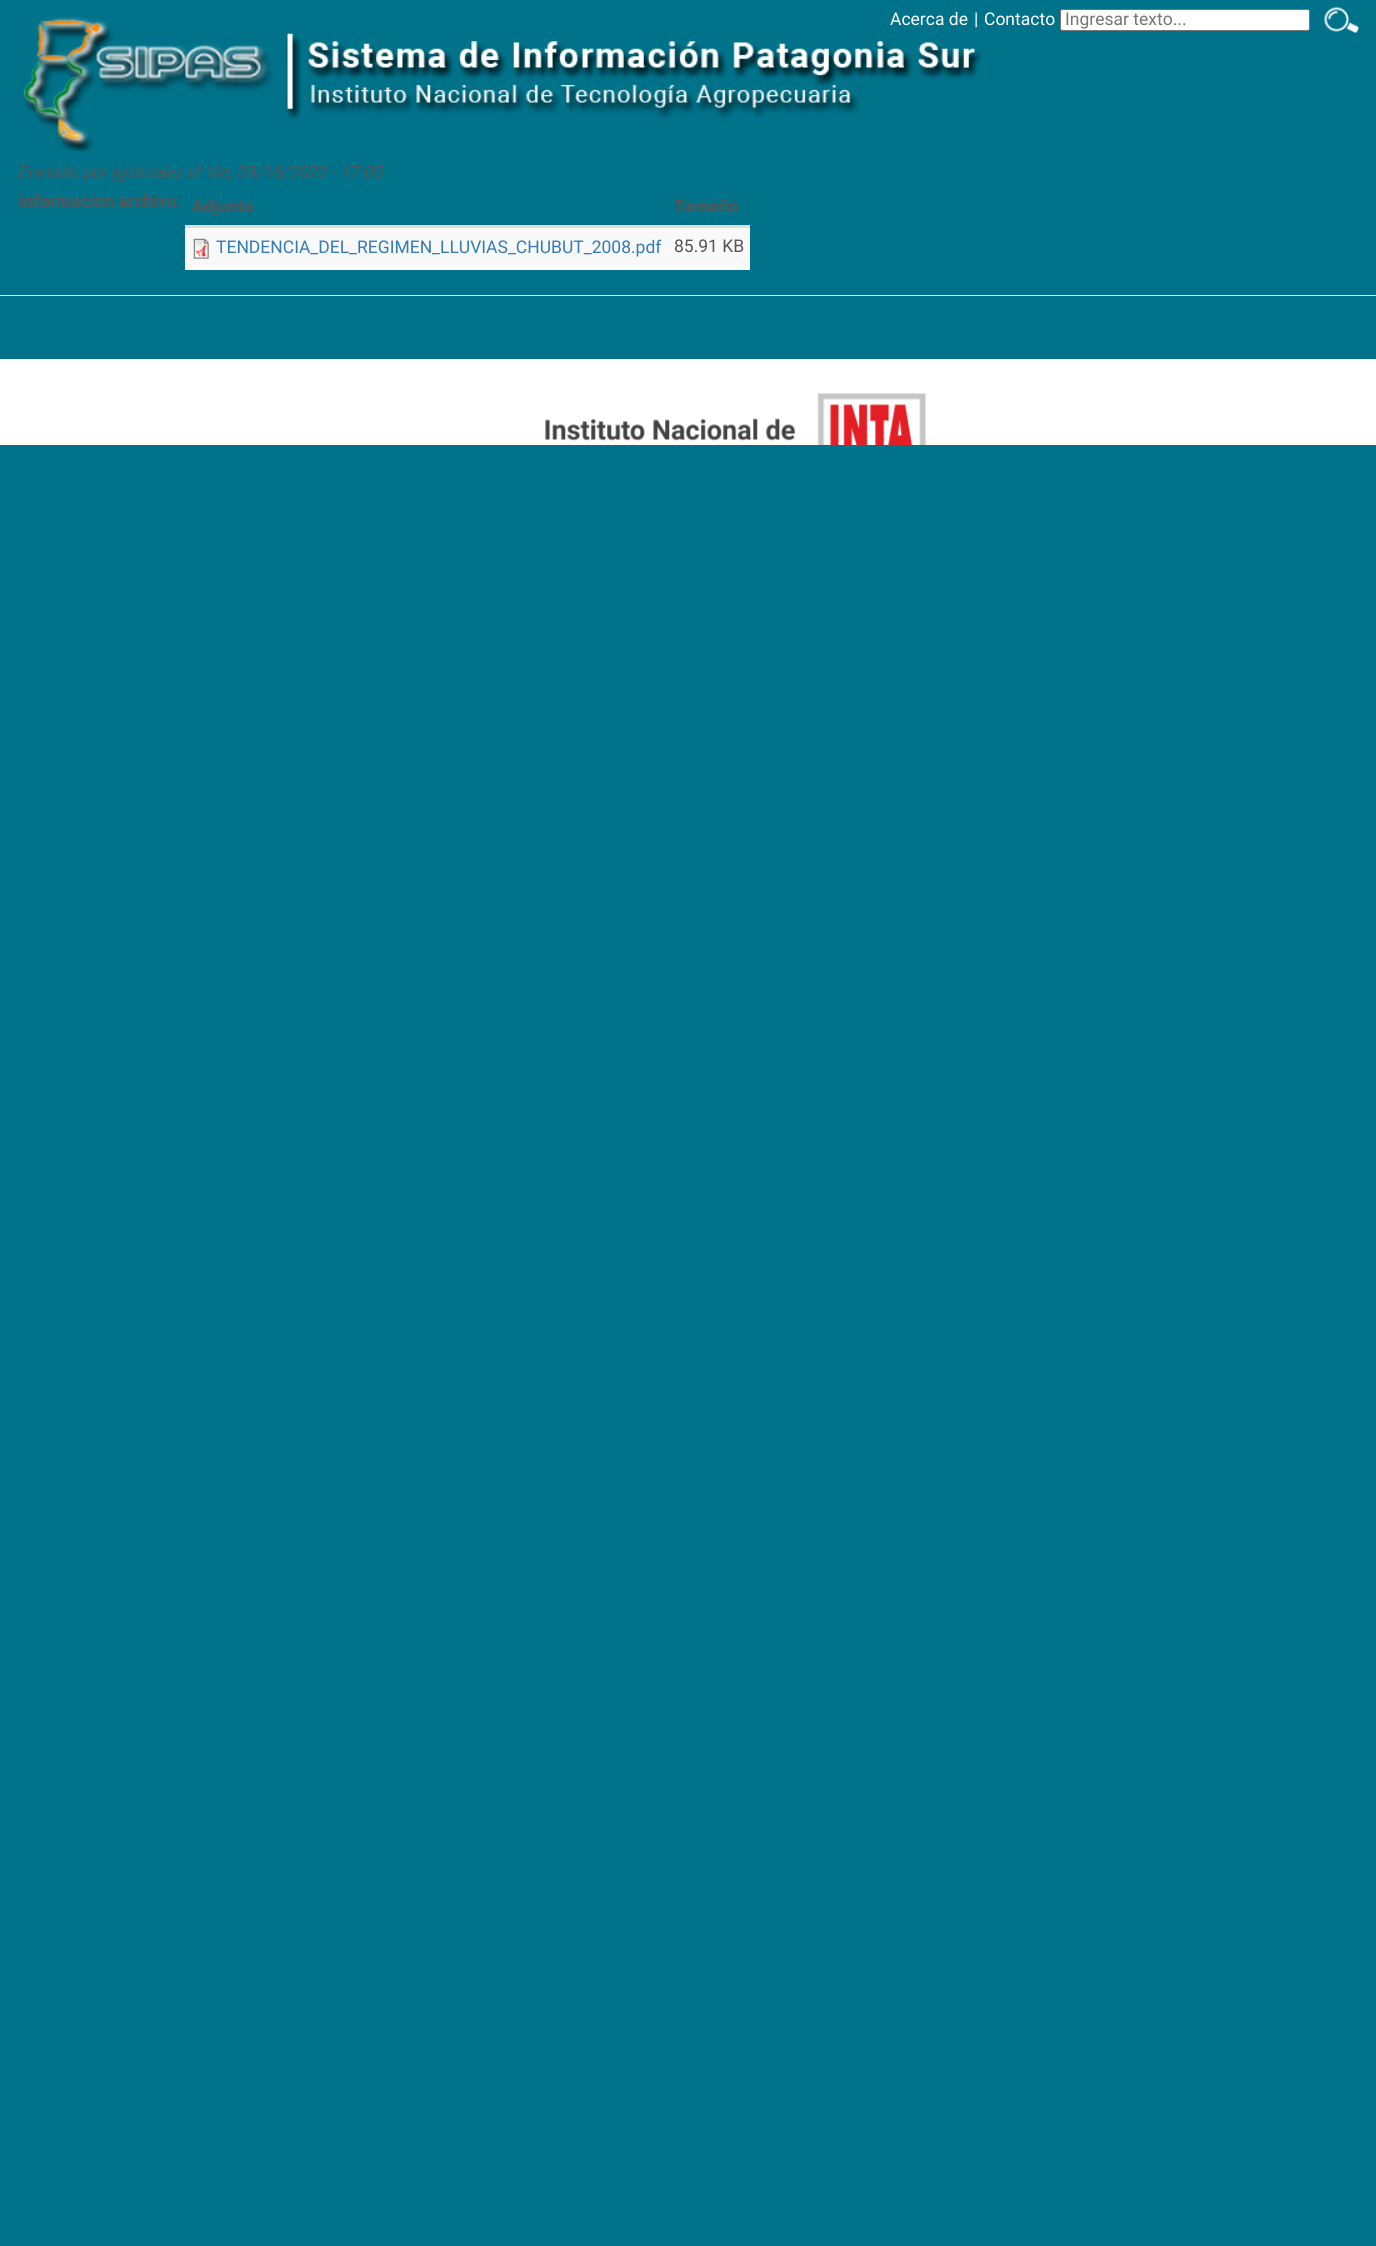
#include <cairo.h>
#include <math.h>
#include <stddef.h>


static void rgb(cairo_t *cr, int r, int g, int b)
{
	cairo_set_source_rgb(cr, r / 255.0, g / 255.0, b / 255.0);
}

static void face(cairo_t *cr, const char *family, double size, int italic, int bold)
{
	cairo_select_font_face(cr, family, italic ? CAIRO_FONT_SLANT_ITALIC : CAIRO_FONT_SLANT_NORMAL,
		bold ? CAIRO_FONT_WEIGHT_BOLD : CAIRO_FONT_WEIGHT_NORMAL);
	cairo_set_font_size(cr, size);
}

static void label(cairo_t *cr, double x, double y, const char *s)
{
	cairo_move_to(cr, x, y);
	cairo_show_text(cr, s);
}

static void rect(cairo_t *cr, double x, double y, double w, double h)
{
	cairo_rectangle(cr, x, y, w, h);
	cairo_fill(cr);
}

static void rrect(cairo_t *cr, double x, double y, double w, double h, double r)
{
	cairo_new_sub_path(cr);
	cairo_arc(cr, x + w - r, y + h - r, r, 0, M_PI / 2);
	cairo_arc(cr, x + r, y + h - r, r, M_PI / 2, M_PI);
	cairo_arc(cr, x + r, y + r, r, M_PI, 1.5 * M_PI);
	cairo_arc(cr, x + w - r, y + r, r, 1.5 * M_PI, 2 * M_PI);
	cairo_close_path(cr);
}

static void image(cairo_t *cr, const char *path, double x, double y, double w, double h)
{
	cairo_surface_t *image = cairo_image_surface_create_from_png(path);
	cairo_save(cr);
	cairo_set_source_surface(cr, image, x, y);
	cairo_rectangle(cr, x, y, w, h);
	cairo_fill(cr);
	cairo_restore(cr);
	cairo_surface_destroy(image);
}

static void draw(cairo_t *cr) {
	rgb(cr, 0, 115, 139);
	cairo_paint(cr);
	image(cr, "image0.png", 23, 16, 960, 136);
	face(cr, "Roboto", 17.5, 0, 0);
	rgb(cr, 255, 255, 255);
	label(cr, 890, 25, "Acerca de");
	label(cr, 974, 25, "|");
	label(cr, 984, 25, "Contacto");
	rrect(cr, 1060.5, 9.5, 249, 21, 2);
	cairo_fill_preserve(cr);
	rgb(cr, 118, 118, 118);
	cairo_set_line_width(cr, 1);
	cairo_stroke(cr);
	rgb(cr, 117, 117, 117);
	label(cr, 1065, 25, "Ingresar texto...");
	image(cr, "image1.png", 1324, 7, 35, 26);
	face(cr, "Roboto", 17.5, 1, 0);
	rgb(cr, 85, 85, 85);
	label(cr, 19, 178, "Enviado por jgonzalez el Vie, 09/16/2022 - 17:05");
	face(cr, "Roboto", 17.5, 0, 1);
	label(cr, 19, 207, "informacion archivo:");
	label(cr, 192, 212, "Adjunto");
	rgb(cr, 221, 221, 221);
	rect(cr, 185, 225, 565, 3);
	rgb(cr, 85, 85, 85);
	label(cr, 674, 212, "Tamaño");
	rgb(cr, 249, 249, 249);
	rect(cr, 185, 228, 565, 42);
	image(cr, "image2.png", 193, 238, 16, 21);
	face(cr, "Roboto", 17.5, 0, 0);
	rgb(cr, 51, 122, 183);
	label(cr, 216, 253, "TENDENCIA_DEL_REGIMEN_LLUVIAS_CHUBUT_2008.pdf");
	rgb(cr, 85, 85, 85);
	label(cr, 674, 252, "85.91 KB");
	rgb(cr, 229, 229, 229);
	rect(cr, 0, 295, 1376, 1);
	rgb(cr, 255, 255, 255);
	rect(cr, 0, 359, 1376, 86);
	image(cr, "image3.png", 545, 393, 382, 52);
}

int main(void) {
	cairo_surface_t *surface = cairo_image_surface_create(CAIRO_FORMAT_RGB24, 1376, 2246);
	cairo_t *cr = cairo_create(surface);
	cairo_font_options_t *options = cairo_font_options_create();
	cairo_font_options_set_hint_metrics(options, CAIRO_HINT_METRICS_OFF);
	cairo_font_options_set_hint_style(options, CAIRO_HINT_STYLE_NONE);
	cairo_set_font_options(cr, options);
	cairo_set_miter_limit(cr, 4);
	draw(cr);
	cairo_surface_write_to_png(surface, "render.png");
	cairo_font_options_destroy(options);
	cairo_destroy(cr);
	cairo_surface_destroy(surface);
	return 0;
}
